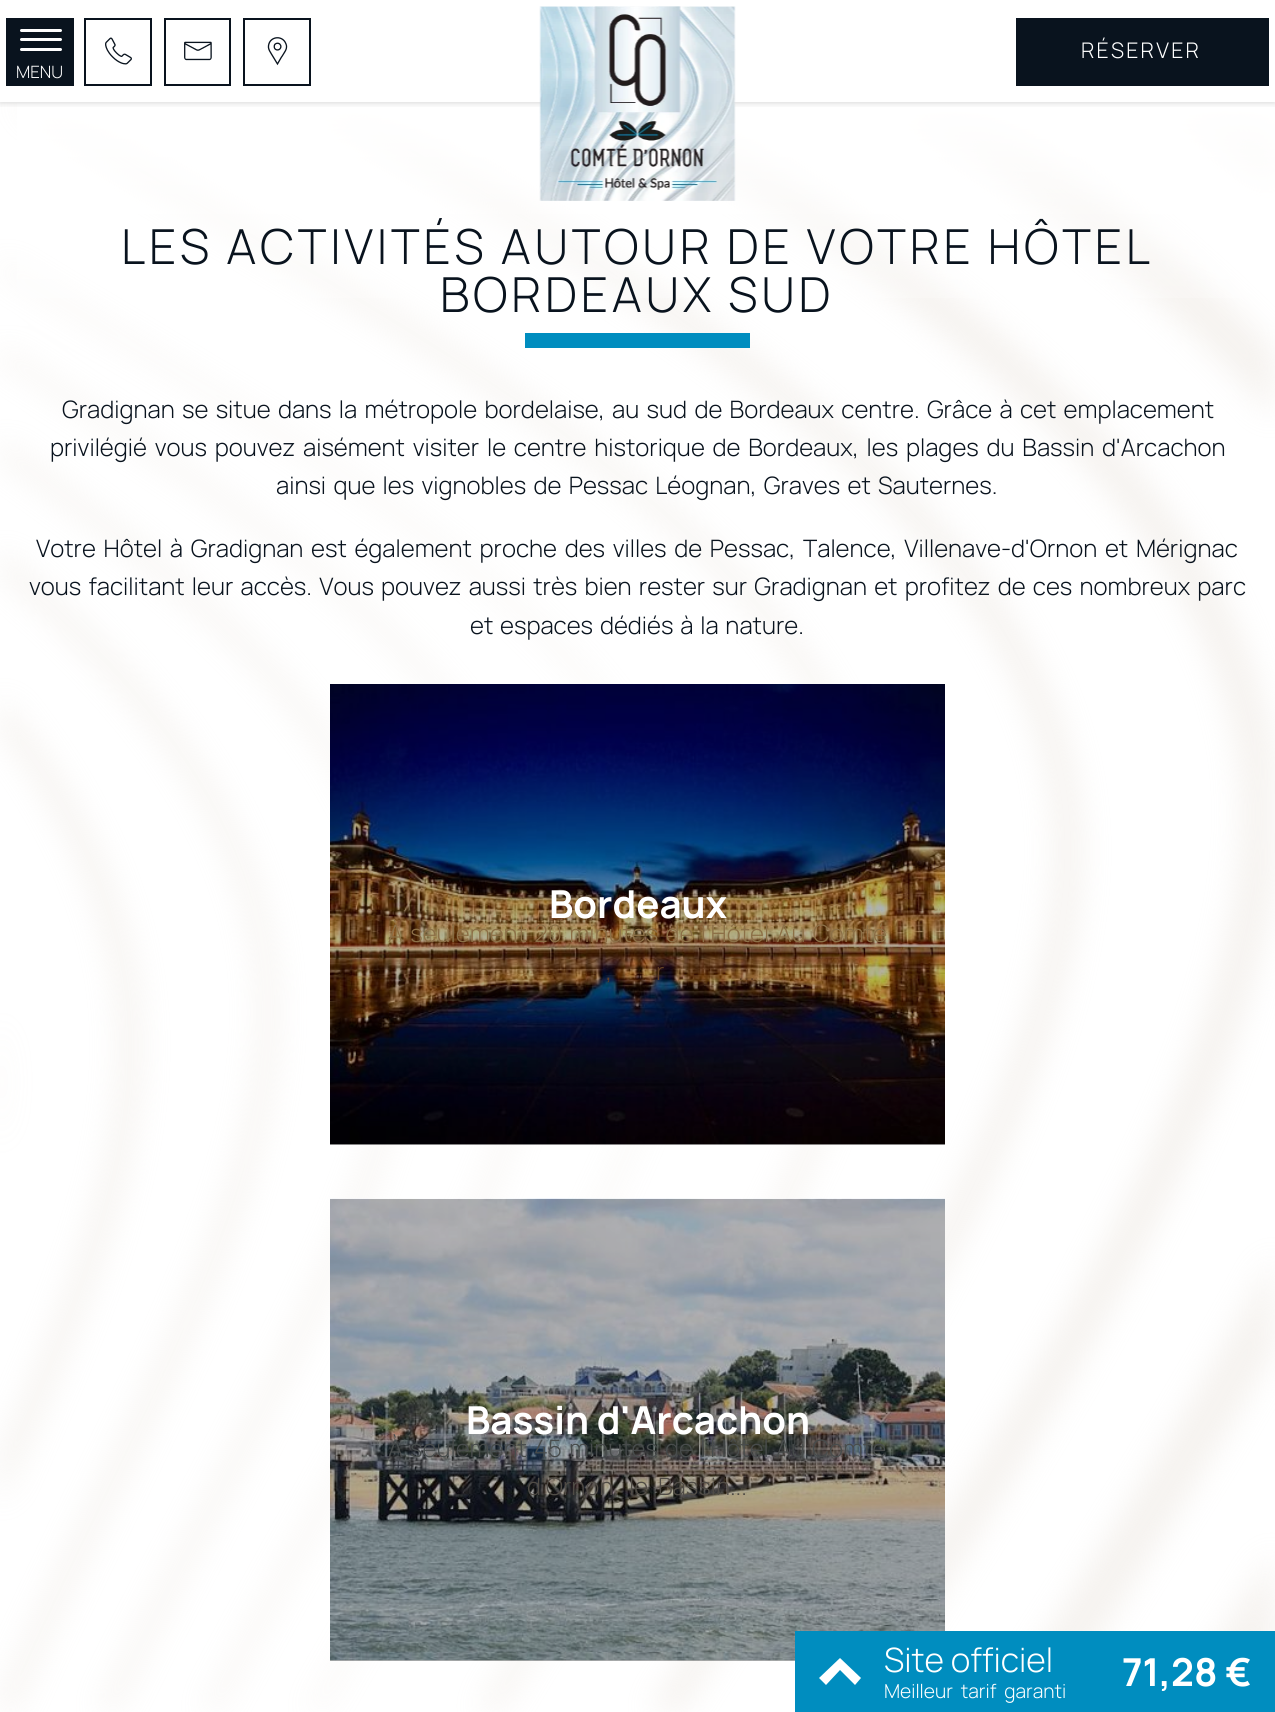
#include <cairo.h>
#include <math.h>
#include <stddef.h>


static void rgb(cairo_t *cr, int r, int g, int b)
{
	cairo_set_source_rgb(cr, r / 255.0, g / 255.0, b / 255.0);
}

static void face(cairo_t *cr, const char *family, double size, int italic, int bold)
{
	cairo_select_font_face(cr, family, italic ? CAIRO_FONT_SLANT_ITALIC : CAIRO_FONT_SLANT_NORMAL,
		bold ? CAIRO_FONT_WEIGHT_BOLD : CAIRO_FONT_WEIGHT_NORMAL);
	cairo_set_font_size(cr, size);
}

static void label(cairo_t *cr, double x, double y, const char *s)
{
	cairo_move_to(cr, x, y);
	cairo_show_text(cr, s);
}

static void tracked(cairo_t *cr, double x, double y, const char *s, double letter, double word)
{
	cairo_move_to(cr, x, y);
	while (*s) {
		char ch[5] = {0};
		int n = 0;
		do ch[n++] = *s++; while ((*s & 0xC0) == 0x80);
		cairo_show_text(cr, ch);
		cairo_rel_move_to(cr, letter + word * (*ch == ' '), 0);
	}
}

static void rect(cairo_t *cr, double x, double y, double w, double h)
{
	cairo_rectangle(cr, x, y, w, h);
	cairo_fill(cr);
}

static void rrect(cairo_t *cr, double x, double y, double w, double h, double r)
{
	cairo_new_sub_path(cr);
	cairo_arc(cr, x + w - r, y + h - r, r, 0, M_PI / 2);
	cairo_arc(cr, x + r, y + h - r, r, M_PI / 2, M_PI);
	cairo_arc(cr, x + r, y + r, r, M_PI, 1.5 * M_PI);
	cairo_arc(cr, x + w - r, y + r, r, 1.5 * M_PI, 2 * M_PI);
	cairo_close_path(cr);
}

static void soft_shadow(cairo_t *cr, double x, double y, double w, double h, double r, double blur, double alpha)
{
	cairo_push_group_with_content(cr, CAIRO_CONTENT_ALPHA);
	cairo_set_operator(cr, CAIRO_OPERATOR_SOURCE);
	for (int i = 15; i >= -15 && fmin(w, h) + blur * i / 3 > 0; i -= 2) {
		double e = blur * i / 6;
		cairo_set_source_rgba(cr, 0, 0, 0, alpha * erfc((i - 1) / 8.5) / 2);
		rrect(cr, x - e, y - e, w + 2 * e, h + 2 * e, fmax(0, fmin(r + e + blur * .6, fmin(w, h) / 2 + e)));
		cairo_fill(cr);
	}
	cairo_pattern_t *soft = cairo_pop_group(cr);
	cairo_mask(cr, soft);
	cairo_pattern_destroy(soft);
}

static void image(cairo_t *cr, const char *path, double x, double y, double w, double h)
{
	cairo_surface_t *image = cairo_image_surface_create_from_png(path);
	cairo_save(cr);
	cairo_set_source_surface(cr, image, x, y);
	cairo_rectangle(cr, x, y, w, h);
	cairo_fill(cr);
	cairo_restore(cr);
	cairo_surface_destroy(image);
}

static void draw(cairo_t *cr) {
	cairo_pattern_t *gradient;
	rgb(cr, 255, 255, 255);
	cairo_paint(cr);
	image(cr, "image4.png", 0, 103, 1275, 1609);
	gradient = cairo_pattern_create_linear(638, 102, 638, 402);
	cairo_pattern_add_color_stop_rgba(gradient, 0, 1, 1, 1, 1);
	cairo_pattern_add_color_stop_rgba(gradient, 0.19, 1, 1, 1, 0.74);
	cairo_pattern_add_color_stop_rgba(gradient, 0.34, 1, 1, 1, 0.54);
	cairo_pattern_add_color_stop_rgba(gradient, 0.47, 1, 1, 1, 0.38);
	cairo_pattern_add_color_stop_rgba(gradient, 0.56, 1, 1, 1, 0.28);
	cairo_pattern_add_color_stop_rgba(gradient, 0.65, 1, 1, 1, 0.19);
	cairo_pattern_add_color_stop_rgba(gradient, 0.73, 1, 1, 1, 0.12);
	cairo_pattern_add_color_stop_rgba(gradient, 0.8, 1, 1, 1, 0.07);
	cairo_pattern_add_color_stop_rgba(gradient, 0.86, 1, 1, 1, 0.04);
	cairo_pattern_add_color_stop_rgba(gradient, 0.91, 1, 1, 1, 0.02);
	cairo_pattern_add_color_stop_rgba(gradient, 0.95, 1, 1, 1, 0.01);
	cairo_pattern_add_color_stop_rgba(gradient, 0.98, 1, 1, 1, 0);
	cairo_pattern_add_color_stop_rgba(gradient, 1, 1, 1, 1, 0);
	cairo_set_source(cr, gradient);
	cairo_pattern_destroy(gradient);
	rect(cr, 17, 103, 1258, 195);
	cairo_save(cr);
	cairo_rectangle(cr, 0, 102, 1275, 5);
	cairo_clip(cr);
	rgb(cr, 0, 0, 0);
	soft_shadow(cr, 0, 0, 1275, 102, 0, 4, 0.2);
	cairo_restore(cr);
	cairo_rectangle(cr, 85, 19, 66, 66);
	rgb(cr, 9, 19, 30);
	cairo_stroke(cr);
	image(cr, "image0.png", 105, 37, 27, 28);
	cairo_rectangle(cr, 165, 19, 65, 66);
	cairo_stroke(cr);
	image(cr, "image1.png", 184, 41, 28, 20);
	cairo_rectangle(cr, 244, 19, 66, 66);
	cairo_stroke(cr);
	image(cr, "image2.png", 267, 37, 21, 29);
	image(cr, "image3.png", 539, 6, 197, 195);
	rect(cr, 1016, 18, 253, 68);
	face(cr, "Manrope Light", 21.5, 0, 0);
	rgb(cr, 255, 255, 255);
	tracked(cr, 1081, 58, "RÉSERVER", 2.25, 0);
	rgb(cr, 9, 19, 30);
	rect(cr, 6, 18, 68, 68);
	rgb(cr, 255, 255, 255);
	rrect(cr, 20, 48, 42, 3, 1.5);
	cairo_fill(cr);
	rrect(cr, 20, 29, 42, 3, 1.5);
	cairo_fill(cr);
	rrect(cr, 20, 38, 42, 3, 1.5);
	cairo_fill(cr);
	face(cr, "Manrope Light", 17, 0, 0);
	label(cr, 16, 78, "MENU");
	face(cr, "Manrope Light", 48.25, 0, 0);
	rgb(cr, 9, 19, 30);
	tracked(cr, 121, 264, "LES ACTIVITÉS AUTOUR DE VOTRE HÔTEL", 3.75, 0);
	tracked(cr, 440, 312, "BORDEAUX SUD", 3.75, 0);
	rgb(cr, 0, 141, 191);
	rect(cr, 525, 333, 225, 15);
	face(cr, "Manrope Light", 24, 0, 0);
	rgb(cr, 9, 19, 30);
	tracked(cr, 62, 418, "Gradignan se situe dans la métropole bordelaise, au sud de Bordeaux centre. Grâce à cet emplacement", 0, 2.5);
	tracked(cr, 50, 456, "privilégié vous pouvez aisément visiter le centre historique de Bordeaux, les plages du Bassin d'Arcachon", 0, 3);
	tracked(cr, 276, 494, "ainsi que les vignobles de Pessac Léognan, Graves et Sauternes.", 0, 2.5);
	tracked(cr, 36, 557, "Votre Hôtel à Gradignan est également proche des villes de Pessac, Talence, Villenave-d'Ornon et Mérignac", 0, 2.9);
	tracked(cr, 29, 595, "vous facilitant leur accès. Vous pouvez aussi très bien rester sur Gradignan et profitez de ces nombreux parc", 0, 2.4);
	tracked(cr, 470, 634, "et espaces dédiés à la nature.", 0, 2);
	image(cr, "image5.png", 330, 684, 615, 461);
	cairo_set_source_rgba(cr, 0, 0, 0, 0.3);
	rect(cr, 330, 684, 615, 461);
	face(cr, "Manrope", 38.5, 0, 1);
	rgb(cr, 255, 255, 255);
	label(cr, 549, 918, "Bordeaux");
	face(cr, "Manrope Light", 24, 0, 0);
	rgb(cr, 140, 112, 71);
	tracked(cr, 388, 942, "À seulement 20 minutes de l'Hôtel Au Comté", 0, 2.5);
	rgb(cr, 99, 65, 36);
	tracked(cr, 606, 980, ",", 0, 10);
	tracked(cr, 656, 980, "r", 0, 10);
	tracked(cr, 738, 980, "...", 0, 10);
	image(cr, "image6.png", 330, 1198, 615, 463);
	cairo_set_source_rgba(cr, 0, 0, 0, 0.3);
	rect(cr, 330, 1199, 615, 462);
	face(cr, "Manrope", 38.5, 0, 1);
	rgb(cr, 255, 255, 255);
	label(cr, 466, 1434, "Bassin d'Arcachon");
	face(cr, "Manrope Light", 24, 0, 0);
	rgb(cr, 72, 76, 76);
	tracked(cr, 388, 1457, "À seulement 45 minutes de l'Hôtel Au Comté", 0, 2.4);
	rgb(cr, 80, 76, 70);
	tracked(cr, 527, 1495, "d'Ornon, le Bassin...", 0, 5);
	rgb(cr, 0, 141, 191);
	rect(cr, 795, 1631, 480, 81);
	rgb(cr, 255, 255, 255);
	cairo_new_path(cr);
	cairo_move_to(cr, 840, 1658);
	cairo_line_to(cr, 861, 1678);
	cairo_line_to(cr, 855, 1685);
	cairo_line_to(cr, 840, 1670);
	cairo_line_to(cr, 826, 1685);
	cairo_line_to(cr, 819, 1678);
	cairo_close_path(cr);
	cairo_fill(cr);
	face(cr, "Manrope Light", 33.5, 0, 0);
	label(cr, 884, 1672, "Site officiel");
	face(cr, "Manrope Light", 19.25, 0, 0);
	tracked(cr, 884, 1698, "Meilleur tarif garanti", 0, 4);
	face(cr, "Manrope", 38.5, 0, 1);
	label(cr, 1122, 1686, "71,28 €");
}

int main(void) {
	cairo_surface_t *surface = cairo_image_surface_create(CAIRO_FORMAT_RGB24, 1275, 1712);
	cairo_t *cr = cairo_create(surface);
	cairo_font_options_t *options = cairo_font_options_create();
	cairo_font_options_set_hint_metrics(options, CAIRO_HINT_METRICS_OFF);
	cairo_font_options_set_hint_style(options, CAIRO_HINT_STYLE_NONE);
	cairo_set_font_options(cr, options);
	cairo_set_miter_limit(cr, 4);
	draw(cr);
	cairo_surface_write_to_png(surface, "render.png");
	cairo_font_options_destroy(options);
	cairo_destroy(cr);
	cairo_surface_destroy(surface);
	return 0;
}
